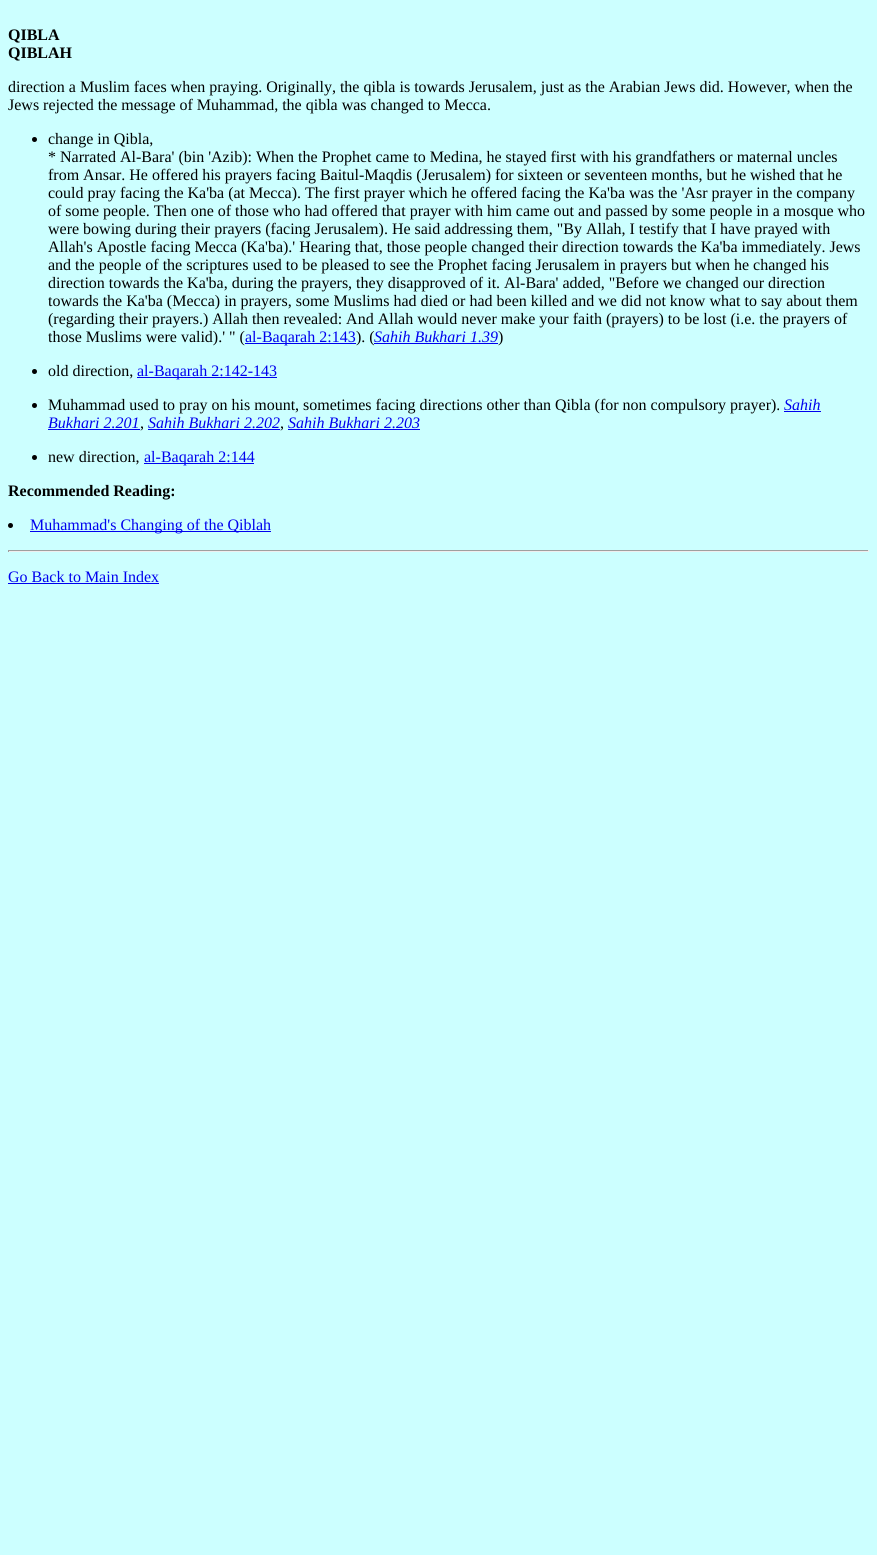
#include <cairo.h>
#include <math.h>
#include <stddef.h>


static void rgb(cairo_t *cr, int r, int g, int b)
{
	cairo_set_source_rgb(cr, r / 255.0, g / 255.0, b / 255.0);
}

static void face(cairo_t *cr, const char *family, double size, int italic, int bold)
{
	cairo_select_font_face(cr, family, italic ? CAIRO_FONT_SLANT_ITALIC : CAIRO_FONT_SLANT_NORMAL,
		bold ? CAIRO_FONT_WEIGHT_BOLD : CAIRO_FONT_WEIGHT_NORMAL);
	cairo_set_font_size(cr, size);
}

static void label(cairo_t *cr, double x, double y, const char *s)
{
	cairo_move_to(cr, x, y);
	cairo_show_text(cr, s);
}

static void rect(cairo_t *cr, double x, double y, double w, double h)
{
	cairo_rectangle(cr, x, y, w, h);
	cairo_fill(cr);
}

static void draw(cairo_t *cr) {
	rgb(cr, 204, 255, 255);
	cairo_paint(cr);
	face(cr, "Liberation Serif", 16, 0, 1);
	rgb(cr, 0, 0, 0);
	label(cr, 8, 40, "QIBLA");
	label(cr, 8, 58, "QIBLAH");
	face(cr, "Liberation Serif", 16, 0, 0);
	label(cr, 8, 92, "direction a Muslim faces when praying. Originally, the qibla is towards Jerusalem, just as the Arabian Jews did. However, when the");
	label(cr, 8, 110, "Jews rejected the message of Muhammad, the qibla was changed to Mecca.");
	cairo_new_path(cr);
	cairo_arc(cr, 34.5, 139.5, 2.5, 0, 2 * M_PI);
	cairo_fill(cr);
	label(cr, 48, 144, "change in Qibla,");
	label(cr, 48, 162, "* Narrated Al-Bara' (bin 'Azib): When the Prophet came to Medina, he stayed first with his grandfathers or maternal uncles");
	label(cr, 48, 180, "from Ansar. He offered his prayers facing Baitul-Maqdis (Jerusalem) for sixteen or seventeen months, but he wished that he");
	label(cr, 48, 198, "could pray facing the Ka'ba (at Mecca). The first prayer which he offered facing the Ka'ba was the 'Asr prayer in the company");
	label(cr, 48, 216, "of some people. Then one of those who had offered that prayer with him came out and passed by some people in a mosque who");
	label(cr, 48, 234, "were bowing during their prayers (facing Jerusalem). He said addressing them, \"By Allah, I testify that I have prayed with");
	label(cr, 48, 252, "Allah's Apostle facing Mecca (Ka'ba).' Hearing that, those people changed their direction towards the Ka'ba immediately. Jews");
	label(cr, 48, 270, "and the people of the scriptures used to be pleased to see the Prophet facing Jerusalem in prayers but when he changed his");
	label(cr, 48, 288, "direction towards the Ka'ba, during the prayers, they disapproved of it. Al-Bara' added, \"Before we changed our direction");
	label(cr, 48, 306, "towards the Ka'ba (Mecca) in prayers, some Muslims had died or had been killed and we did not know what to say about them");
	label(cr, 48, 324, "(regarding their prayers.) Allah then revealed: And Allah would never make your faith (prayers) to be lost (i.e. the prayers of");
	label(cr, 48, 342, "those Muslims were valid).' \" (");
	rgb(cr, 0, 0, 238);
	rect(cr, 245, 343, 111, 1);
	label(cr, 245, 342, "al-Baqarah 2:143");
	rgb(cr, 0, 0, 0);
	label(cr, 356, 342, "). (");
	face(cr, "Liberation Serif", 16, 1, 0);
	rgb(cr, 0, 0, 238);
	label(cr, 374, 342, "Sahih Bukhari 1.39");
	rect(cr, 374, 343, 124, 1);
	face(cr, "Liberation Serif", 16, 0, 0);
	rgb(cr, 0, 0, 0);
	label(cr, 498, 342, ")");
	cairo_new_path(cr);
	cairo_arc(cr, 34.5, 371.5, 2.5, 0, 2 * M_PI);
	cairo_fill(cr);
	label(cr, 48, 376, "old direction,");
	rgb(cr, 0, 0, 238);
	rect(cr, 137, 377, 140, 1);
	label(cr, 137, 376, "al-Baqarah 2:142-143");
	rgb(cr, 0, 0, 0);
	cairo_new_path(cr);
	cairo_arc(cr, 34.5, 405.5, 2.5, 0, 2 * M_PI);
	cairo_fill(cr);
	label(cr, 48, 410, "Muhammad used to pray on his mount, sometimes facing directions other than Qibla (for non compulsory prayer).");
	face(cr, "Liberation Serif", 16, 1, 0);
	rgb(cr, 0, 0, 238);
	label(cr, 784, 410, "Sahih");
	rect(cr, 784, 411, 37, 1);
	label(cr, 48, 428, "Bukhari 2.201");
	rect(cr, 48, 429, 92, 1);
	face(cr, "Liberation Serif", 16, 0, 0);
	rgb(cr, 0, 0, 0);
	label(cr, 140, 428, ",");
	face(cr, "Liberation Serif", 16, 1, 0);
	rgb(cr, 0, 0, 238);
	label(cr, 148, 428, "Sahih Bukhari 2.202");
	rect(cr, 148, 429, 132, 1);
	face(cr, "Liberation Serif", 16, 0, 0);
	rgb(cr, 0, 0, 0);
	label(cr, 280, 428, ",");
	face(cr, "Liberation Serif", 16, 1, 0);
	rgb(cr, 0, 0, 238);
	label(cr, 288, 428, "Sahih Bukhari 2.203");
	rect(cr, 288, 429, 132, 1);
	rgb(cr, 0, 0, 0);
	cairo_new_path(cr);
	cairo_arc(cr, 34.5, 457.5, 2.5, 0, 2 * M_PI);
	cairo_fill(cr);
	face(cr, "Liberation Serif", 16, 0, 0);
	label(cr, 48, 462, "new direction,");
	rgb(cr, 0, 0, 238);
	rect(cr, 144, 463, 110, 1);
	label(cr, 144, 462, "al-Baqarah 2:144");
	face(cr, "Liberation Serif", 16, 0, 1);
	rgb(cr, 0, 0, 0);
	label(cr, 8, 496, "Recommended Reading:");
	cairo_new_path(cr);
	cairo_arc(cr, 10.5, 525.5, 2.5, 0, 2 * M_PI);
	cairo_fill(cr);
	rgb(cr, 0, 0, 238);
	rect(cr, 30, 531, 241, 1);
	face(cr, "Liberation Serif", 16, 0, 0);
	label(cr, 30, 530, "Muhammad's Changing of the Qiblah");
	rgb(cr, 159, 159, 159);
	rect(cr, 8, 550, 861, 1);
	rgb(cr, 238, 238, 238);
	rect(cr, 868, 550, 1, 2);
	rect(cr, 8, 551, 861, 1);
	rgb(cr, 159, 159, 159);
	rect(cr, 8, 550, 1, 2);
	rgb(cr, 0, 0, 238);
	label(cr, 8, 582, "Go Back to Main Index");
	rect(cr, 8, 583, 151, 1);
}

int main(void) {
	cairo_surface_t *surface = cairo_image_surface_create(CAIRO_FORMAT_RGB24, 877, 1555);
	cairo_t *cr = cairo_create(surface);
	cairo_font_options_t *options = cairo_font_options_create();
	cairo_font_options_set_hint_metrics(options, CAIRO_HINT_METRICS_OFF);
	cairo_font_options_set_hint_style(options, CAIRO_HINT_STYLE_NONE);
	cairo_set_font_options(cr, options);
	cairo_set_miter_limit(cr, 4);
	draw(cr);
	cairo_surface_write_to_png(surface, "render.png");
	cairo_font_options_destroy(options);
	cairo_destroy(cr);
	cairo_surface_destroy(surface);
	return 0;
}
